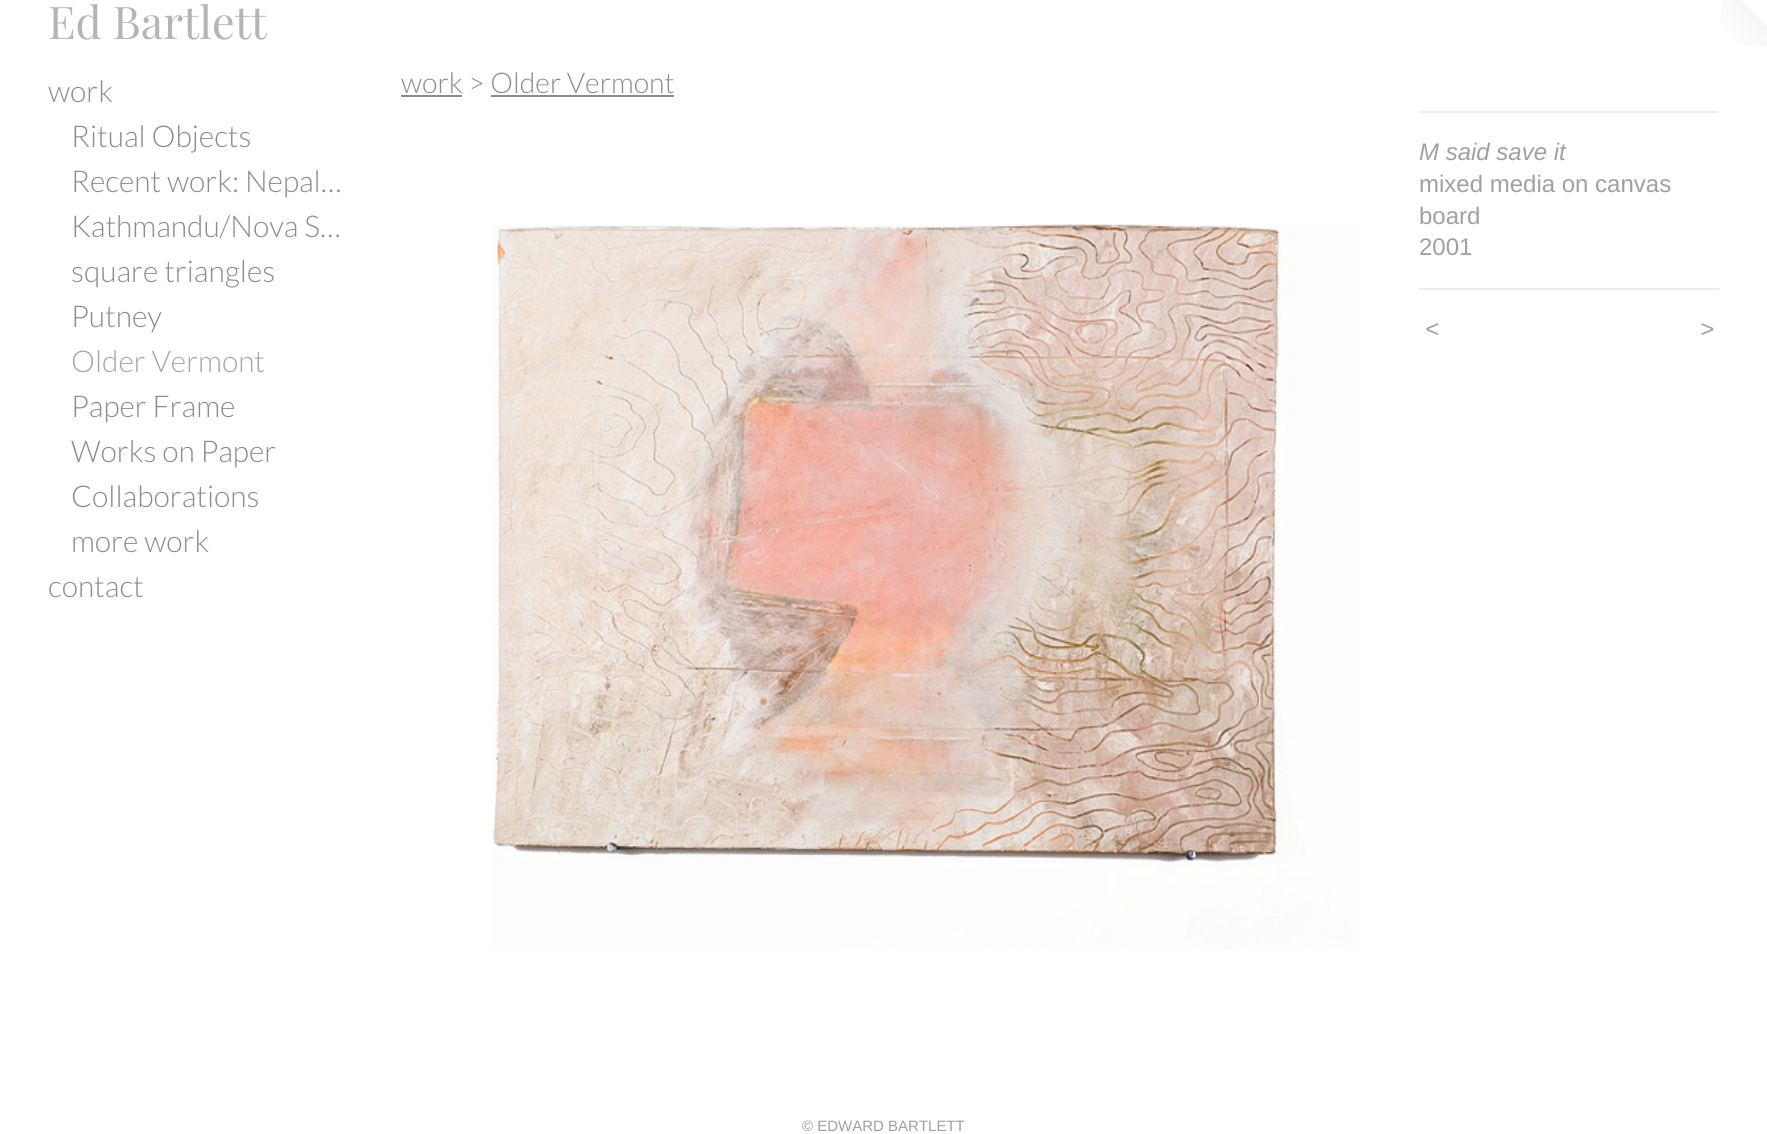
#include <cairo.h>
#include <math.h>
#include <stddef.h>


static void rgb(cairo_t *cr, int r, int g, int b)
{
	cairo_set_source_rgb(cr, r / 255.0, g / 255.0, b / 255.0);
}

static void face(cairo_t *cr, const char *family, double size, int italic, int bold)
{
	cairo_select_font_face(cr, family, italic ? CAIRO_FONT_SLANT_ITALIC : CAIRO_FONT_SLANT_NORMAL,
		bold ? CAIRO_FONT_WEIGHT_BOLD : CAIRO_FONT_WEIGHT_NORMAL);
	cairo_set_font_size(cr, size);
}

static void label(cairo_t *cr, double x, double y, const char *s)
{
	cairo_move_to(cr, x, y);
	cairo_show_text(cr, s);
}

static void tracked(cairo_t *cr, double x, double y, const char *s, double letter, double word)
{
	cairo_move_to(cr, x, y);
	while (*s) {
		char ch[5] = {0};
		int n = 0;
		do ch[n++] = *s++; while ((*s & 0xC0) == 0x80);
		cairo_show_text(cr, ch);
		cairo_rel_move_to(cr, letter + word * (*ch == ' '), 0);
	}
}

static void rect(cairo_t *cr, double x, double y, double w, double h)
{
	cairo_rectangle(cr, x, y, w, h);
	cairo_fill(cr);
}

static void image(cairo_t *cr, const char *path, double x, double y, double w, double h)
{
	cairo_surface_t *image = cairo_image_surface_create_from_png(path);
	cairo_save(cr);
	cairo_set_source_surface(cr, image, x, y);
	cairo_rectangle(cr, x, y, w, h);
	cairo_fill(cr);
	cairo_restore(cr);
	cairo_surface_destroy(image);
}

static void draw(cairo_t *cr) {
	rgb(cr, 255, 255, 255);
	cairo_paint(cr);
	face(cr, "Playfair Display", 45, 0, 0);
	rgb(cr, 181, 181, 181);
	label(cr, 48, 39, "Ed Bartlett");
	image(cr, "image0.png", 1721, 0, 46, 46);
	face(cr, "Lato Light", 30, 0, 0);
	rgb(cr, 140, 140, 140);
	label(cr, 48, 102, "work");
	label(cr, 71, 147, "Ritual Objects");
	label(cr, 71, 192, "Recent work: Nepal…");
	label(cr, 71, 237, "Kathmandu/Nova S…");
	label(cr, 71, 282, "square triangles");
	label(cr, 71, 327, "Putney");
	rgb(cr, 166, 166, 166);
	label(cr, 71, 372, "Older Vermont");
	rgb(cr, 140, 140, 140);
	label(cr, 71, 417, "Paper Frame");
	label(cr, 71, 462, "Works on Paper");
	label(cr, 71, 507, "Collaborations");
	label(cr, 71, 552, "more work");
	label(cr, 48, 597, "contact");
	face(cr, "Lato Light", 28.5, 0, 0);
	label(cr, 401, 93, "work > Older Vermont");
	rect(cr, 401, 95, 61, 2);
	rect(cr, 491, 95, 183, 2);
	image(cr, "image1.png", 492, 223, 866, 727);
	rgb(cr, 236, 236, 236);
	rect(cr, 1419, 111, 300, 2);
	face(cr, "Liberation Sans", 24, 1, 0);
	rgb(cr, 160, 160, 160);
	label(cr, 1419, 160, "M said save it");
	face(cr, "Liberation Sans", 24, 0, 0);
	label(cr, 1419, 192, "mixed media on canvas");
	label(cr, 1419, 224, "board");
	label(cr, 1419, 255, "2001");
	rgb(cr, 236, 236, 236);
	rect(cr, 1419, 288, 300, 2);
	face(cr, "Liberation Sans", 24, 1, 0);
	rgb(cr, 160, 160, 160);
	tracked(cr, 1425, 337, "<", 2, 0);
	tracked(cr, 1700, 337, ">", 2, 0);
	face(cr, "Liberation Sans", 15, 0, 0);
	label(cr, 802, 1131, "© EDWARD BARTLETT");
}

int main(void) {
	cairo_surface_t *surface = cairo_image_surface_create(CAIRO_FORMAT_RGB24, 1767, 1134);
	cairo_t *cr = cairo_create(surface);
	cairo_font_options_t *options = cairo_font_options_create();
	cairo_font_options_set_hint_metrics(options, CAIRO_HINT_METRICS_OFF);
	cairo_font_options_set_hint_style(options, CAIRO_HINT_STYLE_NONE);
	cairo_set_font_options(cr, options);
	cairo_set_miter_limit(cr, 4);
	draw(cr);
	cairo_surface_write_to_png(surface, "render.png");
	cairo_font_options_destroy(options);
	cairo_destroy(cr);
	cairo_surface_destroy(surface);
	return 0;
}
